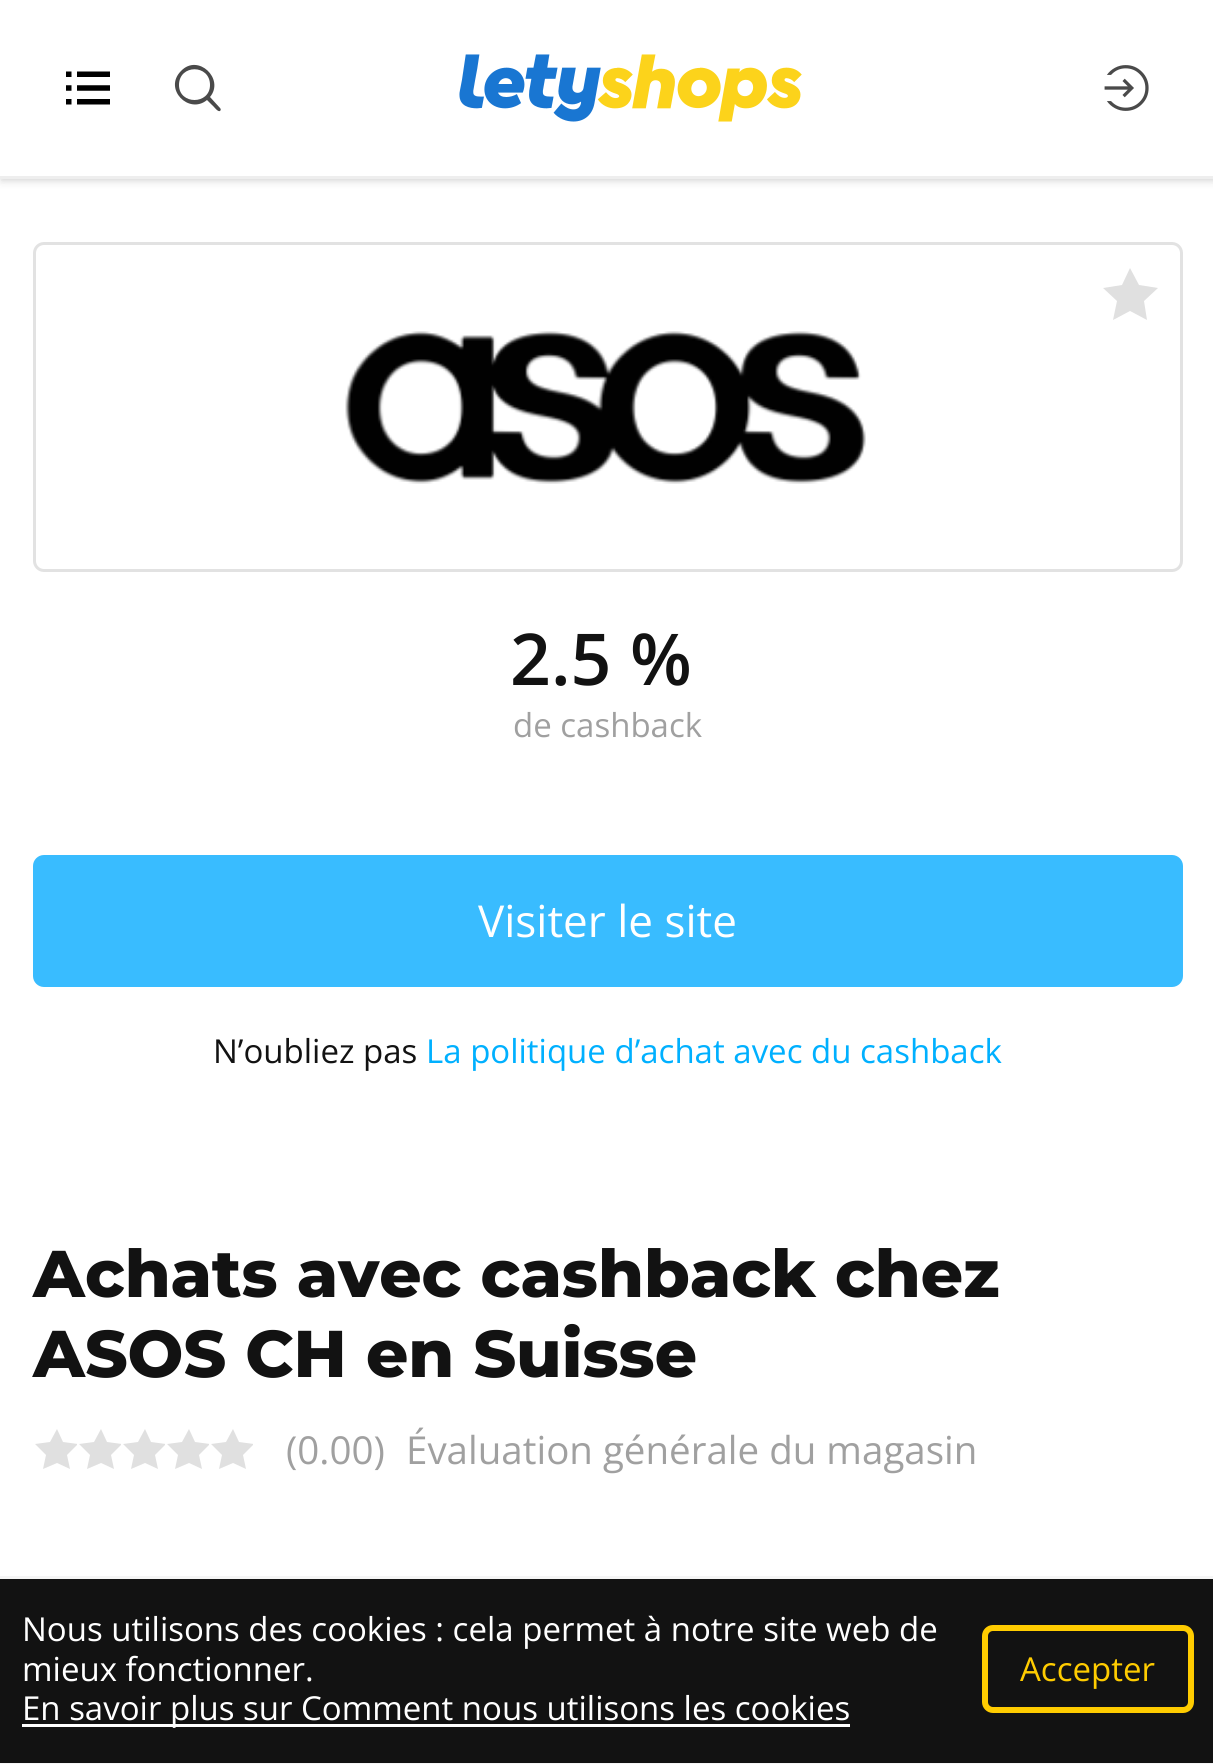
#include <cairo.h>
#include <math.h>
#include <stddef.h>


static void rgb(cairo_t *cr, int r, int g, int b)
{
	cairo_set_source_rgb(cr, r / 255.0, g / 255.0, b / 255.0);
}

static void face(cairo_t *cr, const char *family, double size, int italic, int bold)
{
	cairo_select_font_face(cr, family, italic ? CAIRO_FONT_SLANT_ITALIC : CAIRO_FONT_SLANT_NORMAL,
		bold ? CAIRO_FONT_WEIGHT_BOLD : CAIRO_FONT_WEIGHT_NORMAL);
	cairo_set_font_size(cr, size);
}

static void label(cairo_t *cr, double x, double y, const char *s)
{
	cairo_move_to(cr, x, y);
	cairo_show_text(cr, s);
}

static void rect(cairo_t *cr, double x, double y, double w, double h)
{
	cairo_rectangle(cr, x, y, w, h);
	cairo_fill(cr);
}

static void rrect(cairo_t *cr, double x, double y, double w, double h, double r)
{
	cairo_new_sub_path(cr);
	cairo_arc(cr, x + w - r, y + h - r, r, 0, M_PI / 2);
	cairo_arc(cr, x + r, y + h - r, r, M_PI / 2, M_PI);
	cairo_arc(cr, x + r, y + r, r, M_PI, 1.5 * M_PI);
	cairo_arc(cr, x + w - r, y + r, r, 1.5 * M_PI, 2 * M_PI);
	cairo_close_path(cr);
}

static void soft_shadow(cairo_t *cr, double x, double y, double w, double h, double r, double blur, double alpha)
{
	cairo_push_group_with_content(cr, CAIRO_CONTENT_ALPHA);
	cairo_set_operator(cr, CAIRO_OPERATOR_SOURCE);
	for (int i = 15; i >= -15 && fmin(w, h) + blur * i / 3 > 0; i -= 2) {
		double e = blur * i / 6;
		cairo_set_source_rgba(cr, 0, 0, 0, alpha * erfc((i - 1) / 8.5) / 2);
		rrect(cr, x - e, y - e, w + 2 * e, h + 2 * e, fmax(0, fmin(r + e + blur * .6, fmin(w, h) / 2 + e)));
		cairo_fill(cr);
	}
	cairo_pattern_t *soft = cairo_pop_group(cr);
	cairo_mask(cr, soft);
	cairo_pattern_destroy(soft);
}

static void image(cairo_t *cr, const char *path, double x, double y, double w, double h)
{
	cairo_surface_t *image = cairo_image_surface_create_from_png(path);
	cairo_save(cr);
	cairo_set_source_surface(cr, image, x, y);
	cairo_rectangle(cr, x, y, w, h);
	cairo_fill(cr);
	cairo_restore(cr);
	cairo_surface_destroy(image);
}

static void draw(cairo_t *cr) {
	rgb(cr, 255, 255, 255);
	cairo_paint(cr);
	rgb(cr, 0, 0, 0);
	soft_shadow(cr, 3, 6, 1210, 173, 0, 3, 0.1);
	soft_shadow(cr, 0, 3, 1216, 179, 0, 4, 0.1);
	rgb(cr, 255, 255, 255);
	rect(cr, 0, 0, 1213, 176);
	rgb(cr, 238, 238, 238);
	rect(cr, 0, 176, 1213, 3);
	image(cr, "image0.png", 66, 71, 44, 34);
	rgb(cr, 74, 74, 74);
	cairo_set_fill_rule(cr, CAIRO_FILL_RULE_EVEN_ODD);
	cairo_new_path(cr);
	cairo_move_to(cr, 210, 85);
	cairo_curve_to(cr, 210, 105, 179, 105, 179, 85);
	cairo_curve_to(cr, 179, 64, 210, 64, 210, 85);
	cairo_move_to(cr, 220, 108);
	cairo_line_to(cr, 210, 97);
	cairo_curve_to(cr, 225, 79, 198, 53, 181, 71);
	cairo_curve_to(cr, 163, 89, 189, 115, 207, 100);
	cairo_line_to(cr, 214, 107);
	cairo_curve_to(cr, 215, 108, 218, 112, 220, 111);
	cairo_curve_to(cr, 221, 110, 221, 109, 220, 108);
	cairo_fill(cr);
	image(cr, "image1.png", 459, 54, 343, 68);
	image(cr, "image2.png", 1104, 65, 45, 46);
	rrect(cr, 34.5, 243.5, 1147, 327, 9.5);
	rgb(cr, 226, 226, 226);
	cairo_set_line_width(cr, 3);
	cairo_stroke(cr);
	rgb(cr, 224, 224, 224);
	cairo_set_fill_rule(cr, CAIRO_FILL_RULE_WINDING);
	cairo_new_path(cr);
	cairo_move_to(cr, 1130, 268);
	cairo_line_to(cr, 1139, 285);
	cairo_line_to(cr, 1158, 288);
	cairo_line_to(cr, 1144, 301);
	cairo_line_to(cr, 1147, 320);
	cairo_line_to(cr, 1130, 311);
	cairo_line_to(cr, 1113, 320);
	cairo_line_to(cr, 1117, 301);
	cairo_line_to(cr, 1103, 288);
	cairo_line_to(cr, 1122, 285);
	cairo_close_path(cr);
	cairo_fill(cr);
	image(cr, "image3.png", 345, 331, 521, 153);
	face(cr, "Open Sans SemiBold", 71.5, 0, 0);
	rgb(cr, 18, 18, 18);
	label(cr, 510, 685, "2.5 %");
	face(cr, "Open Sans", 33, 0, 0);
	rgb(cr, 160, 160, 160);
	label(cr, 513, 737, "de cashback");
	rgb(cr, 57, 188, 255);
	rrect(cr, 33, 855, 1150, 132, 11);
	cairo_fill(cr);
	face(cr, "Open Sans", 44, 0, 0);
	rgb(cr, 255, 255, 255);
	label(cr, 478, 937, "Visiter le site");
	face(cr, "Open Sans", 33, 0, 0);
	rgb(cr, 18, 18, 18);
	label(cr, 213, 1063, "N’oubliez pas");
	rgb(cr, 0, 176, 255);
	label(cr, 426, 1063, "La politique d’achat avec du cashback");
	face(cr, "Montserrat ExtraBold", 66, 0, 0);
	rgb(cr, 18, 18, 18);
	label(cr, 33, 1297, "Achats avec cashback chez");
	label(cr, 33, 1377, "ASOS CH en Suisse");
	rgb(cr, 224, 224, 224);
	rect(cr, 35, 1429, 218, 40);
	cairo_save(cr);
	cairo_rectangle(cr, 33, 1427, 44, 44);
	cairo_clip(cr);
	rgb(cr, 255, 255, 255);
	cairo_new_path(cr);
	cairo_move_to(cr, 33, 1427);
	cairo_line_to(cr, 81, 1427);
	cairo_line_to(cr, 81, 1471);
	cairo_line_to(cr, 33, 1471);
	cairo_close_path(cr);
	cairo_move_to(cr, 70, 1469);
	cairo_line_to(cr, 67, 1455);
	cairo_line_to(cr, 78, 1444);
	cairo_line_to(cr, 63, 1442);
	cairo_line_to(cr, 57, 1429);
	cairo_line_to(cr, 50, 1442);
	cairo_line_to(cr, 35, 1444);
	cairo_line_to(cr, 46, 1455);
	cairo_line_to(cr, 43, 1469);
	cairo_line_to(cr, 57, 1463);
	cairo_close_path(cr);
	cairo_fill(cr);
	cairo_restore(cr);
	cairo_save(cr);
	cairo_rectangle(cr, 77, 1427, 44, 44);
	cairo_clip(cr);
	rgb(cr, 255, 255, 255);
	cairo_new_path(cr);
	cairo_move_to(cr, 77, 1427);
	cairo_line_to(cr, 125, 1427);
	cairo_line_to(cr, 125, 1471);
	cairo_line_to(cr, 77, 1471);
	cairo_close_path(cr);
	cairo_move_to(cr, 114, 1469);
	cairo_line_to(cr, 111, 1455);
	cairo_line_to(cr, 122, 1444);
	cairo_line_to(cr, 107, 1442);
	cairo_line_to(cr, 101, 1429);
	cairo_line_to(cr, 94, 1442);
	cairo_line_to(cr, 79, 1444);
	cairo_line_to(cr, 90, 1455);
	cairo_line_to(cr, 87, 1469);
	cairo_line_to(cr, 101, 1463);
	cairo_close_path(cr);
	cairo_fill(cr);
	cairo_restore(cr);
	cairo_save(cr);
	cairo_rectangle(cr, 121, 1427, 44, 44);
	cairo_clip(cr);
	rgb(cr, 255, 255, 255);
	cairo_new_path(cr);
	cairo_move_to(cr, 121, 1427);
	cairo_line_to(cr, 169, 1427);
	cairo_line_to(cr, 169, 1471);
	cairo_line_to(cr, 121, 1471);
	cairo_close_path(cr);
	cairo_move_to(cr, 158, 1469);
	cairo_line_to(cr, 155, 1455);
	cairo_line_to(cr, 166, 1444);
	cairo_line_to(cr, 151, 1442);
	cairo_line_to(cr, 145, 1429);
	cairo_line_to(cr, 138, 1442);
	cairo_line_to(cr, 123, 1444);
	cairo_line_to(cr, 134, 1455);
	cairo_line_to(cr, 131, 1469);
	cairo_line_to(cr, 145, 1463);
	cairo_close_path(cr);
	cairo_fill(cr);
	cairo_restore(cr);
	cairo_save(cr);
	cairo_rectangle(cr, 165, 1427, 44, 44);
	cairo_clip(cr);
	rgb(cr, 255, 255, 255);
	cairo_new_path(cr);
	cairo_move_to(cr, 165, 1427);
	cairo_line_to(cr, 213, 1427);
	cairo_line_to(cr, 213, 1471);
	cairo_line_to(cr, 165, 1471);
	cairo_close_path(cr);
	cairo_move_to(cr, 202, 1469);
	cairo_line_to(cr, 199, 1455);
	cairo_line_to(cr, 210, 1444);
	cairo_line_to(cr, 195, 1442);
	cairo_line_to(cr, 189, 1429);
	cairo_line_to(cr, 182, 1442);
	cairo_line_to(cr, 167, 1444);
	cairo_line_to(cr, 178, 1455);
	cairo_line_to(cr, 175, 1469);
	cairo_line_to(cr, 189, 1463);
	cairo_close_path(cr);
	cairo_fill(cr);
	cairo_restore(cr);
	cairo_save(cr);
	cairo_rectangle(cr, 209, 1427, 44, 44);
	cairo_clip(cr);
	rgb(cr, 255, 255, 255);
	cairo_new_path(cr);
	cairo_move_to(cr, 209, 1427);
	cairo_line_to(cr, 257, 1427);
	cairo_line_to(cr, 257, 1471);
	cairo_line_to(cr, 209, 1471);
	cairo_close_path(cr);
	cairo_move_to(cr, 246, 1469);
	cairo_line_to(cr, 243, 1455);
	cairo_line_to(cr, 254, 1444);
	cairo_line_to(cr, 239, 1442);
	cairo_line_to(cr, 233, 1429);
	cairo_line_to(cr, 226, 1442);
	cairo_line_to(cr, 211, 1444);
	cairo_line_to(cr, 222, 1455);
	cairo_line_to(cr, 219, 1469);
	cairo_line_to(cr, 233, 1463);
	cairo_close_path(cr);
	cairo_fill(cr);
	cairo_restore(cr);
	face(cr, "Open Sans", 38.5, 0, 0);
	rgb(cr, 160, 160, 160);
	label(cr, 286, 1464, "(0.00)");
	label(cr, 406, 1464, "Évaluation générale du magasin");
	rgb(cr, 18, 18, 18);
	rect(cr, 0, 1579, 1213, 184);
	rgb(cr, 245, 245, 245);
	rect(cr, 0, 1576, 1213, 3);
	rect(cr, 0, 1763, 1213, 1);
	face(cr, "Open Sans", 33, 0, 0);
	rgb(cr, 255, 255, 255);
	label(cr, 22, 1641, "Nous utilisons des cookies : cela permet à notre site web de");
	label(cr, 22, 1681, "mieux fonctionner.");
	rect(cr, 22, 1724, 828, 3);
	label(cr, 22, 1720, "En savoir plus sur Comment nous utilisons les cookies");
	rrect(cr, 985, 1628, 206, 82, 8);
	rgb(cr, 255, 204, 0);
	cairo_set_line_width(cr, 6);
	cairo_stroke(cr);
	label(cr, 1020, 1681, "Accepter");
}

int main(void) {
	cairo_surface_t *surface = cairo_image_surface_create(CAIRO_FORMAT_RGB24, 1213, 1764);
	cairo_t *cr = cairo_create(surface);
	cairo_font_options_t *options = cairo_font_options_create();
	cairo_font_options_set_hint_metrics(options, CAIRO_HINT_METRICS_OFF);
	cairo_font_options_set_hint_style(options, CAIRO_HINT_STYLE_NONE);
	cairo_set_font_options(cr, options);
	cairo_set_miter_limit(cr, 4);
	draw(cr);
	cairo_surface_write_to_png(surface, "render.png");
	cairo_font_options_destroy(options);
	cairo_destroy(cr);
	cairo_surface_destroy(surface);
	return 0;
}
